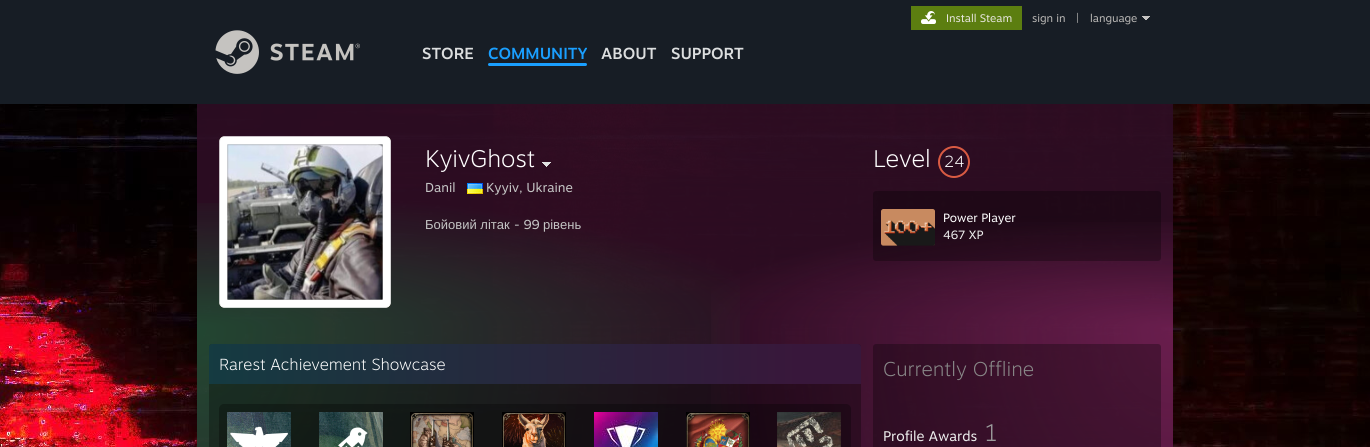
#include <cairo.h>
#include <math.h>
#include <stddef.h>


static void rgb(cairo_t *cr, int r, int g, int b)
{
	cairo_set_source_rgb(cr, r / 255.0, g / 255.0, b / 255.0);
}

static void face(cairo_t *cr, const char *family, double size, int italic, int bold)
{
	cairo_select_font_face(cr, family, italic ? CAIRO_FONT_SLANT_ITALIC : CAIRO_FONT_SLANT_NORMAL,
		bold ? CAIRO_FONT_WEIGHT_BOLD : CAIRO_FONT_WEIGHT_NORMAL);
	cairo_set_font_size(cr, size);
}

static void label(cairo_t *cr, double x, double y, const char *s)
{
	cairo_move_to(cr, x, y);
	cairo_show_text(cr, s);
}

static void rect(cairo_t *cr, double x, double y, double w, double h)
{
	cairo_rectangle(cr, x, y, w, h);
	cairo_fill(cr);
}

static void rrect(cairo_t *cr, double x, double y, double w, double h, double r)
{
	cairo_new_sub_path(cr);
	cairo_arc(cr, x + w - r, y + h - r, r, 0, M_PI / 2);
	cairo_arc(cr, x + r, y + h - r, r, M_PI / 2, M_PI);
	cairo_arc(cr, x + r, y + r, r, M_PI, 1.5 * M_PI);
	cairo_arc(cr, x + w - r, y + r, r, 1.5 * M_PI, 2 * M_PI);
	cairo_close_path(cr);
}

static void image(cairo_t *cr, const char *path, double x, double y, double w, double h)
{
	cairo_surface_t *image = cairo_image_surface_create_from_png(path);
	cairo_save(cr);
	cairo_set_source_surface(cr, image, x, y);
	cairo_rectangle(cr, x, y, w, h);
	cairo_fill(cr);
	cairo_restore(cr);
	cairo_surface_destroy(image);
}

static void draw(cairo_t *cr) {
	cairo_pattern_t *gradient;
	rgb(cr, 23, 29, 37);
	cairo_paint(cr);
	rgb(cr, 92, 126, 16);
	rect(cr, 911, 6, 111, 24);
	image(cr, "image0.png", 921, 11, 15, 13);
	face(cr, "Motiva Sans", 11, 0, 0);
	rgb(cr, 229, 228, 220);
	label(cr, 946, 22, "Install Steam");
	rgb(cr, 184, 182, 180);
	label(cr, 1032, 22, "sign in");
	label(cr, 1076, 22, "|");
	label(cr, 1090, 22, "language");
	image(cr, "image1.png", 1142, 16, 8, 4);
	image(cr, "image2.png", 215, 30, 145, 44);
	face(cr, "Motiva Sans Medium", 16, 0, 0);
	rgb(cr, 220, 222, 223);
	label(cr, 422, 59, "STORE");
	rgb(cr, 26, 159, 255);
	label(cr, 488, 59, "COMMUNITY");
	rrect(cr, 488, 63, 99, 3, 1.5);
	cairo_fill(cr);
	rgb(cr, 220, 222, 223);
	label(cr, 601, 59, "ABOUT");
	label(cr, 671, 59, "SUPPORT");
	image(cr, "image3.png", 0, 104, 1370, 343);
	cairo_set_source_rgba(cr, 0.18, 0.051, 0.141, 0.93);
	rect(cr, 197, 104, 976, 224);
	gradient = cairo_pattern_create_radial(0, 0, 0, 0, 0, 1);
	cairo_pattern_set_matrix(gradient, &(cairo_matrix_t){1.0 / 1380, 0, 0, 1.0 / 317, -1.0 * 197 / 1380, -1.0 * 328 / 317});
	cairo_pattern_add_color_stop_rgba(gradient, 0, 0.035, 0.953, 0.388, 0.25);
	cairo_pattern_add_color_stop_rgba(gradient, 0.43, 0.035, 0.953, 0.388, 0);
	cairo_set_source(cr, gradient);
	cairo_pattern_destroy(gradient);
	rect(cr, 197, 203, 543, 125);
	gradient = cairo_pattern_create_radial(0, 0, 0, 0, 0, 1);
	cairo_pattern_set_matrix(gradient, &(cairo_matrix_t){1.0 / 976, 0, 0, 1.0 / 224, -1.0 * 1173 / 976, -1.0 * 328 / 224});
	cairo_pattern_add_color_stop_rgba(gradient, 0, 0.973, 0.275, 0.706, 0.3);
	cairo_pattern_add_color_stop_rgba(gradient, 0.51, 0.973, 0.275, 0.706, 0);
	cairo_set_source(cr, gradient);
	cairo_pattern_destroy(gradient);
	rect(cr, 711, 222, 462, 106);
	image(cr, "image5.png", 227, 144, 156, 156);
	image(cr, "image4.png", 219, 136, 172, 172);
	face(cr, "Motiva Sans Thin", 24, 0, 0);
	rgb(cr, 255, 255, 255);
	label(cr, 425, 167, "KyivGhost");
	image(cr, "image6.png", 542, 162, 9, 5);
	face(cr, "Motiva Sans", 13, 0, 0);
	rgb(cr, 196, 196, 196);
	label(cr, 425, 192, "Danil");
	image(cr, "image7.png", 467, 183, 16, 11);
	label(cr, 486, 192, "Kyyiv, Ukraine");
	face(cr, "Liberation Sans", 13, 0, 0);
	label(cr, 425, 229, "Бойовий літак");
	face(cr, "Motiva Sans", 13, 0, 0);
	label(cr, 514, 229, "- 99");
	face(cr, "Liberation Sans", 13, 0, 0);
	label(cr, 543, 229, "рівень");
	face(cr, "Motiva Sans Thin", 24, 0, 0);
	rgb(cr, 255, 255, 255);
	label(cr, 873, 167, "Level");
	cairo_new_path(cr);
	cairo_arc(cr, 954, 162, 15, 0, 2 * M_PI);
	rgb(cr, 217, 91, 67);
	cairo_stroke(cr);
	face(cr, "Motiva Sans Thin", 16, 0, 0);
	rgb(cr, 255, 255, 255);
	label(cr, 944, 167, "24");
	cairo_set_source_rgba(cr, 0, 0, 0, 0.3);
	rrect(cr, 873, 191, 288, 70, 3);
	cairo_fill(cr);
	image(cr, "image8.png", 881, 209, 54, 37);
	face(cr, "Motiva Sans", 12, 0, 0);
	rgb(cr, 255, 255, 255);
	label(cr, 943, 222, "Power Player");
	rgb(cr, 235, 235, 235);
	label(cr, 943, 239, "467 XP");
	cairo_set_source_rgba(cr, 0.18, 0.051, 0.141, 0.93);
	rect(cr, 197, 328, 976, 119);
	gradient = cairo_pattern_create_radial(0, 0, 0, 0, 0, 1);
	cairo_pattern_set_matrix(gradient, &(cairo_matrix_t){1.0 / 1380, 0, 0, 1.0 / 1731, -1.0 * 197 / 1380, -1.0 * 328 / 1731});
	cairo_pattern_add_color_stop_rgba(gradient, 0, 0.035, 0.953, 0.388, 0.25);
	cairo_pattern_add_color_stop_rgba(gradient, 0.43, 0.035, 0.953, 0.388, 0);
	cairo_set_source(cr, gradient);
	cairo_pattern_destroy(gradient);
	rect(cr, 197, 328, 543, 119);
	gradient = cairo_pattern_create_radial(0, 0, 0, 0, 0, 1);
	cairo_pattern_set_matrix(gradient, &(cairo_matrix_t){1.0 / 976, 0, 0, 1.0 / 1224, -1.0 * 1173 / 976, -1.0 * 328 / 1224});
	cairo_pattern_add_color_stop_rgba(gradient, 0, 0.973, 0.275, 0.706, 0.3);
	cairo_pattern_add_color_stop_rgba(gradient, 0.51, 0.973, 0.275, 0.706, 0);
	cairo_set_source(cr, gradient);
	cairo_pattern_destroy(gradient);
	rect(cr, 711, 328, 462, 119);
	cairo_set_source_rgba(cr, 0, 0, 0, 0.3);
	rrect(cr, 209, 344, 652, 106, 3);
	cairo_fill(cr);
	gradient = cairo_pattern_create_linear(209, 364, 861, 364);
	cairo_pattern_add_color_stop_rgba(gradient, 0, 0.078, 0.235, 0.267, 0.93);
	cairo_pattern_add_color_stop_rgba(gradient, 0.9, 0.224, 0.094, 0.239, 0.93);
	cairo_set_source(cr, gradient);
	cairo_pattern_destroy(gradient);
	cairo_new_path(cr);
	cairo_move_to(cr, 212, 344);
	cairo_line_to(cr, 858, 344);
	cairo_curve_to(cr, 859.5, 344, 861, 345.5, 861, 347);
	cairo_line_to(cr, 861, 384);
	cairo_line_to(cr, 209, 384);
	cairo_line_to(cr, 209, 347);
	cairo_curve_to(cr, 209, 345.5, 210.5, 344, 212, 344);
	cairo_close_path(cr);
	cairo_fill(cr);
	face(cr, "Motiva Sans Thin", 16, 0, 0);
	rgb(cr, 255, 255, 255);
	label(cr, 219, 370, "Rarest Achievement Showcase");
	cairo_set_source_rgba(cr, 0, 0, 0, 0.3);
	rrect(cr, 219, 404, 632, 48, 5);
	cairo_fill(cr);
	image(cr, "image9.png", 227, 412, 64, 35);
	image(cr, "image10.png", 319, 412, 64, 35);
	image(cr, "image11.png", 410, 412, 64, 35);
	image(cr, "image12.png", 502, 412, 64, 35);
	image(cr, "image13.png", 594, 412, 64, 35);
	image(cr, "image14.png", 686, 412, 64, 35);
	image(cr, "image15.png", 777, 412, 64, 35);
	rrect(cr, 873, 344, 288, 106, 3);
	cairo_fill(cr);
	face(cr, "Motiva Sans Thin", 20, 0, 0);
	rgb(cr, 137, 137, 137);
	label(cr, 883, 376, "Currently Offline");
	face(cr, "Motiva Sans", 14, 0, 0);
	rgb(cr, 235, 235, 235);
	label(cr, 883, 441, "Profile Awards");
	face(cr, "Motiva Sans Thin", 24, 0, 0);
	rgb(cr, 155, 155, 155);
	label(cr, 985, 441, "1");
}

int main(void) {
	cairo_surface_t *surface = cairo_image_surface_create(CAIRO_FORMAT_RGB24, 1370, 447);
	cairo_t *cr = cairo_create(surface);
	cairo_font_options_t *options = cairo_font_options_create();
	cairo_font_options_set_hint_metrics(options, CAIRO_HINT_METRICS_OFF);
	cairo_font_options_set_hint_style(options, CAIRO_HINT_STYLE_NONE);
	cairo_set_font_options(cr, options);
	cairo_set_miter_limit(cr, 4);
	draw(cr);
	cairo_surface_write_to_png(surface, "render.png");
	cairo_font_options_destroy(options);
	cairo_destroy(cr);
	cairo_surface_destroy(surface);
	return 0;
}
